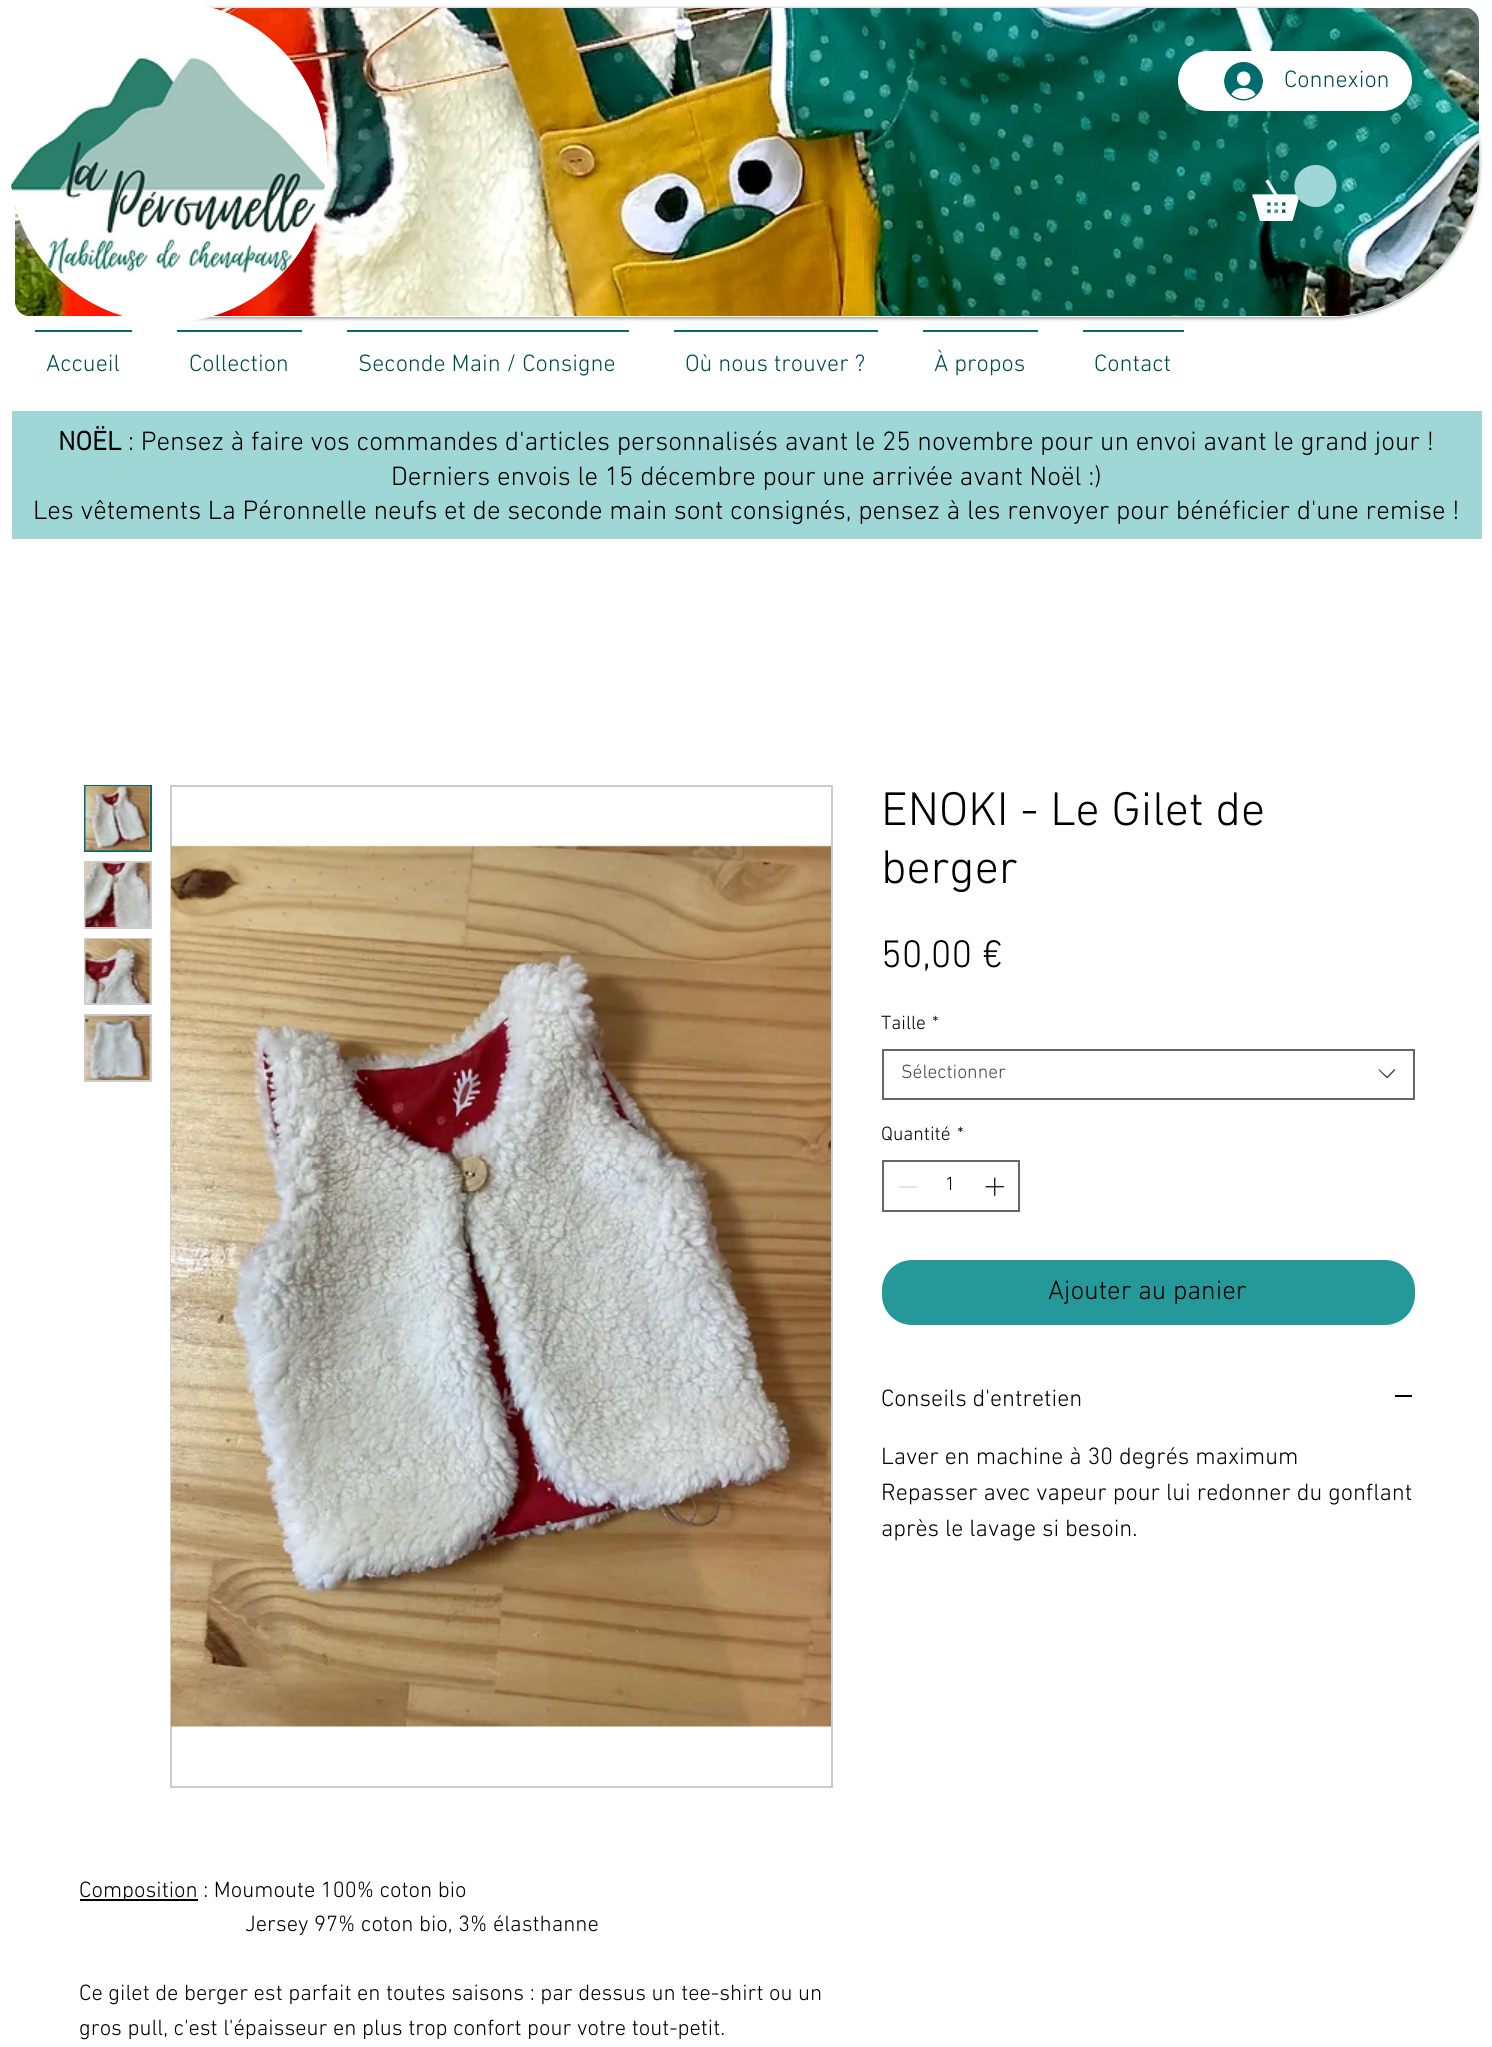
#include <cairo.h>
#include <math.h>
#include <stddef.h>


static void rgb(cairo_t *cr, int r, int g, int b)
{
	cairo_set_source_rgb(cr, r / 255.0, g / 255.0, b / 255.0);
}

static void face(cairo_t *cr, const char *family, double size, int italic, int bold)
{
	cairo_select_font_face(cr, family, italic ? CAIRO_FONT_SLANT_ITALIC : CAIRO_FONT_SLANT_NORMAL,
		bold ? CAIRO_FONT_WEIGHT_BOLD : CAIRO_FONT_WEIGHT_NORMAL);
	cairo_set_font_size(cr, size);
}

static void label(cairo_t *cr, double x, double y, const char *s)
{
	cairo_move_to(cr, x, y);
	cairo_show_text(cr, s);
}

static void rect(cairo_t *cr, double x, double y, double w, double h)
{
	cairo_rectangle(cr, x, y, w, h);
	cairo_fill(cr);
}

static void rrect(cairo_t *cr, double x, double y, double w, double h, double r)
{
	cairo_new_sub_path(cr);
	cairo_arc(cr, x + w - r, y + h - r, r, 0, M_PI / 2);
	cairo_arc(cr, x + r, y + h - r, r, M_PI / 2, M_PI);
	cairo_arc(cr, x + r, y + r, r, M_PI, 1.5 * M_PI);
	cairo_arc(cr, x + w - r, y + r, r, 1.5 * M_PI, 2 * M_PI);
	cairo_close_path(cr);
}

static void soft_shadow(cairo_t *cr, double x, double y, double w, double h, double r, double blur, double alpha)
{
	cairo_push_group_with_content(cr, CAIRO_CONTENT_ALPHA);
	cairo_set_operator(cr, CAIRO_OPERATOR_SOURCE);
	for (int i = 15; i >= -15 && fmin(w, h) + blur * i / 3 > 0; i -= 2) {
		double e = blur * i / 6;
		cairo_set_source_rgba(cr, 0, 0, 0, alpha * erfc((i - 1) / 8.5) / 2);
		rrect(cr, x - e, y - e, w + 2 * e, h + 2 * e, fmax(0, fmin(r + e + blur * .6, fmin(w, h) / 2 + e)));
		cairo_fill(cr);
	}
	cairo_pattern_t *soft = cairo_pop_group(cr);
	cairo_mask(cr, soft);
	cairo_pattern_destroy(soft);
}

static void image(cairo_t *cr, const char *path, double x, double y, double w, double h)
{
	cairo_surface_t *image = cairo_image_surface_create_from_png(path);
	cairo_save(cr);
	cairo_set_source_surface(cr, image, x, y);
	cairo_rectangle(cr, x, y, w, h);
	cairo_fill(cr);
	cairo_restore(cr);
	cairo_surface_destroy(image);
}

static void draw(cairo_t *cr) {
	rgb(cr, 255, 255, 255);
	cairo_paint(cr);
	rgb(cr, 0, 0, 0);
	soft_shadow(cr, 15, 9, 1464, 309, 150, 2, 0.5);
	rgb(cr, 255, 255, 255);
	cairo_new_path(cr);
	cairo_move_to(cr, 165, 8);
	cairo_line_to(cr, 1464, 8);
	cairo_curve_to(cr, 1472.5, 8, 1479, 14.5, 1479, 23);
	cairo_line_to(cr, 1479, 167);
	cairo_curve_to(cr, 1479, 250, 1412, 317, 1329, 317);
	cairo_line_to(cr, 30, 317);
	cairo_curve_to(cr, 21.5, 317, 15, 310.5, 15, 302);
	cairo_line_to(cr, 15, 158);
	cairo_curve_to(cr, 15, 75, 82, 8, 165, 8);
	cairo_close_path(cr);
	cairo_fill(cr);
	image(cr, "image1.png", 15, 8, 1464, 309);
	cairo_new_path(cr);
	cairo_move_to(cr, 168, 1.5);
	cairo_curve_to(cr, 256, 1.5, 327, 73.5, 327, 162);
	cairo_curve_to(cr, 327, 250.5, 256, 322.5, 168, 322.5);
	cairo_curve_to(cr, 80, 322.5, 9, 250.5, 9, 162);
	cairo_curve_to(cr, 9, 73.5, 80, 1.5, 168, 1.5);
	cairo_close_path(cr);
	cairo_fill(cr);
	image(cr, "image0.png", 11, 8, 315, 310);
	rrect(cr, 1178, 51, 234, 60, 30);
	cairo_fill(cr);
	image(cr, "image2.png", 1224, 62, 39, 39);
	face(cr, "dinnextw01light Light", 24, 0, 0);
	rgb(cr, 0, 77, 78);
	label(cr, 1284, 87, "Connexion");
	image(cr, "image3.png", 1252, 165, 85, 56);
	rgb(cr, 0, 108, 109);
	rect(cr, 35, 330, 97, 2);
	rgb(cr, 0, 77, 78);
	label(cr, 46, 371, "Accueil");
	rgb(cr, 0, 108, 109);
	rect(cr, 177, 330, 125, 2);
	rgb(cr, 0, 77, 78);
	label(cr, 189, 371, "Collection");
	rgb(cr, 0, 108, 109);
	rect(cr, 347, 330, 282, 2);
	rgb(cr, 0, 77, 78);
	label(cr, 358, 371, "Seconde Main / Consigne");
	rgb(cr, 0, 108, 109);
	rect(cr, 674, 330, 204, 2);
	rgb(cr, 0, 77, 78);
	label(cr, 685, 371, "Où nous trouver ?");
	rgb(cr, 0, 108, 109);
	rect(cr, 923, 330, 115, 2);
	rgb(cr, 0, 77, 78);
	label(cr, 934, 371, "À propos");
	rgb(cr, 0, 108, 109);
	rect(cr, 1083, 330, 101, 2);
	rgb(cr, 0, 77, 78);
	label(cr, 1094, 371, "Contact");
	rgb(cr, 159, 214, 214);
	rect(cr, 12, 411, 1470, 128);
	face(cr, "dinnextw01light", 27, 0, 1);
	rgb(cr, 0, 0, 0);
	label(cr, 58, 450, "NOËL");
	face(cr, "dinnextw01light Light", 27, 0, 0);
	label(cr, 128, 450, ": Pensez à faire vos commandes d'articles personnalisés avant le 25 novembre pour un envoi avant le grand jour !");
	label(cr, 391, 485, "Derniers envois le 15 décembre pour une arrivée avant Noël :)");
	label(cr, 33, 519, "Les vêtements La Péronnelle neufs et de seconde main sont consignés, pensez à les renvoyer pour bénéficier d'une remise !");
	face(cr, "dinnextw01light Light", 48, 0, 0);
	label(cr, 881, 825, "ENOKI - Le Gilet de");
	label(cr, 881, 883, "berger");
	face(cr, "dinnextw01light Light", 39, 0, 0);
	label(cr, 881, 967, "50,00 €");
	face(cr, "dinnextw01light Light", 19.5, 0, 0);
	label(cr, 881, 1029, "Taille");
	label(cr, 932, 1029, "*");
	cairo_rectangle(cr, 883, 1050, 531, 49);
	rgb(cr, 102, 102, 102);
	cairo_stroke(cr);
	rgb(cr, 68, 68, 68);
	label(cr, 901, 1078, "Sélectionner");
	cairo_set_fill_rule(cr, CAIRO_FILL_RULE_EVEN_ODD);
	cairo_new_path(cr);
	cairo_move_to(cr, 1394.5, 1069);
	cairo_line_to(cr, 1395.5, 1070);
	cairo_line_to(cr, 1387, 1078.5);
	cairo_line_to(cr, 1378.5, 1070);
	cairo_line_to(cr, 1379, 1069);
	cairo_line_to(cr, 1387, 1076.5);
	cairo_close_path(cr);
	cairo_fill(cr);
	rgb(cr, 0, 0, 0);
	label(cr, 881, 1140, "Quantité");
	label(cr, 957, 1140, "*");
	cairo_rectangle(cr, 883, 1161, 136, 50);
	rgb(cr, 102, 102, 102);
	cairo_stroke(cr);
	rgb(cr, 227, 227, 227);
	rect(cr, 899, 1186, 18, 2);
	rgb(cr, 0, 0, 0);
	label(cr, 945, 1190, "1");
	image(cr, "image4.png", 985, 1177, 19, 19);
	rgb(cr, 37, 152, 153);
	rrect(cr, 882, 1260, 533, 65, 30);
	cairo_fill(cr);
	face(cr, "dinnextw01light Light", 27, 0, 0);
	rgb(cr, 0, 0, 0);
	label(cr, 1048, 1299, "Ajouter au panier");
	face(cr, "dinnextw01light Light", 24, 0, 0);
	label(cr, 881, 1406, "Conseils d'entretien");
	rect(cr, 1395, 1395, 17, 2);
	label(cr, 881, 1464, "Laver en machine à 30 degrés maximum");
	label(cr, 881, 1500, "Repasser avec vapeur pour lui redonner du gonflant");
	label(cr, 881, 1536, "après le lavage si besoin.");
	rgb(cr, 204, 204, 204);
	rect(cr, 149, 787, 1, 63);
	cairo_rectangle(cr, 85, 786, 66, 65);
	rgb(cr, 0, 108, 109);
	cairo_stroke(cr);
	image(cr, "image5.png", 85, 786, 66, 65);
	rgb(cr, 204, 204, 204);
	rect(cr, 84, 861, 68, 68);
	image(cr, "image6.png", 85, 862, 66, 65);
	rect(cr, 84, 938, 68, 67);
	image(cr, "image7.png", 85, 939, 66, 65);
	rect(cr, 84, 1014, 68, 68);
	image(cr, "image8.png", 85, 1015, 66, 65);
	cairo_rectangle(cr, 171, 786, 661, 1001);
	cairo_stroke(cr);
	image(cr, "image9.png", 171, 845, 660, 882);
	rgb(cr, 0, 0, 0);
	rect(cr, 80, 1899, 118, 2);
	face(cr, "dinnextw01light Light", 22.5, 0, 0);
	label(cr, 79, 1897, "Composition : Moumoute 100% coton bio");
	label(cr, 245, 1931, "Jersey 97% coton bio, 3% élasthanne");
	label(cr, 79, 2000, "Ce gilet de berger est parfait en toutes saisons : par dessus un tee-shirt ou un");
	label(cr, 79, 2035, "gros pull, c'est l'épaisseur en plus trop confort pour votre tout-petit.");
}

int main(void) {
	cairo_surface_t *surface = cairo_image_surface_create(CAIRO_FORMAT_RGB24, 1492, 2047);
	cairo_t *cr = cairo_create(surface);
	cairo_font_options_t *options = cairo_font_options_create();
	cairo_font_options_set_hint_metrics(options, CAIRO_HINT_METRICS_OFF);
	cairo_font_options_set_hint_style(options, CAIRO_HINT_STYLE_NONE);
	cairo_set_font_options(cr, options);
	cairo_set_miter_limit(cr, 4);
	draw(cr);
	cairo_surface_write_to_png(surface, "render.png");
	cairo_font_options_destroy(options);
	cairo_destroy(cr);
	cairo_surface_destroy(surface);
	return 0;
}
